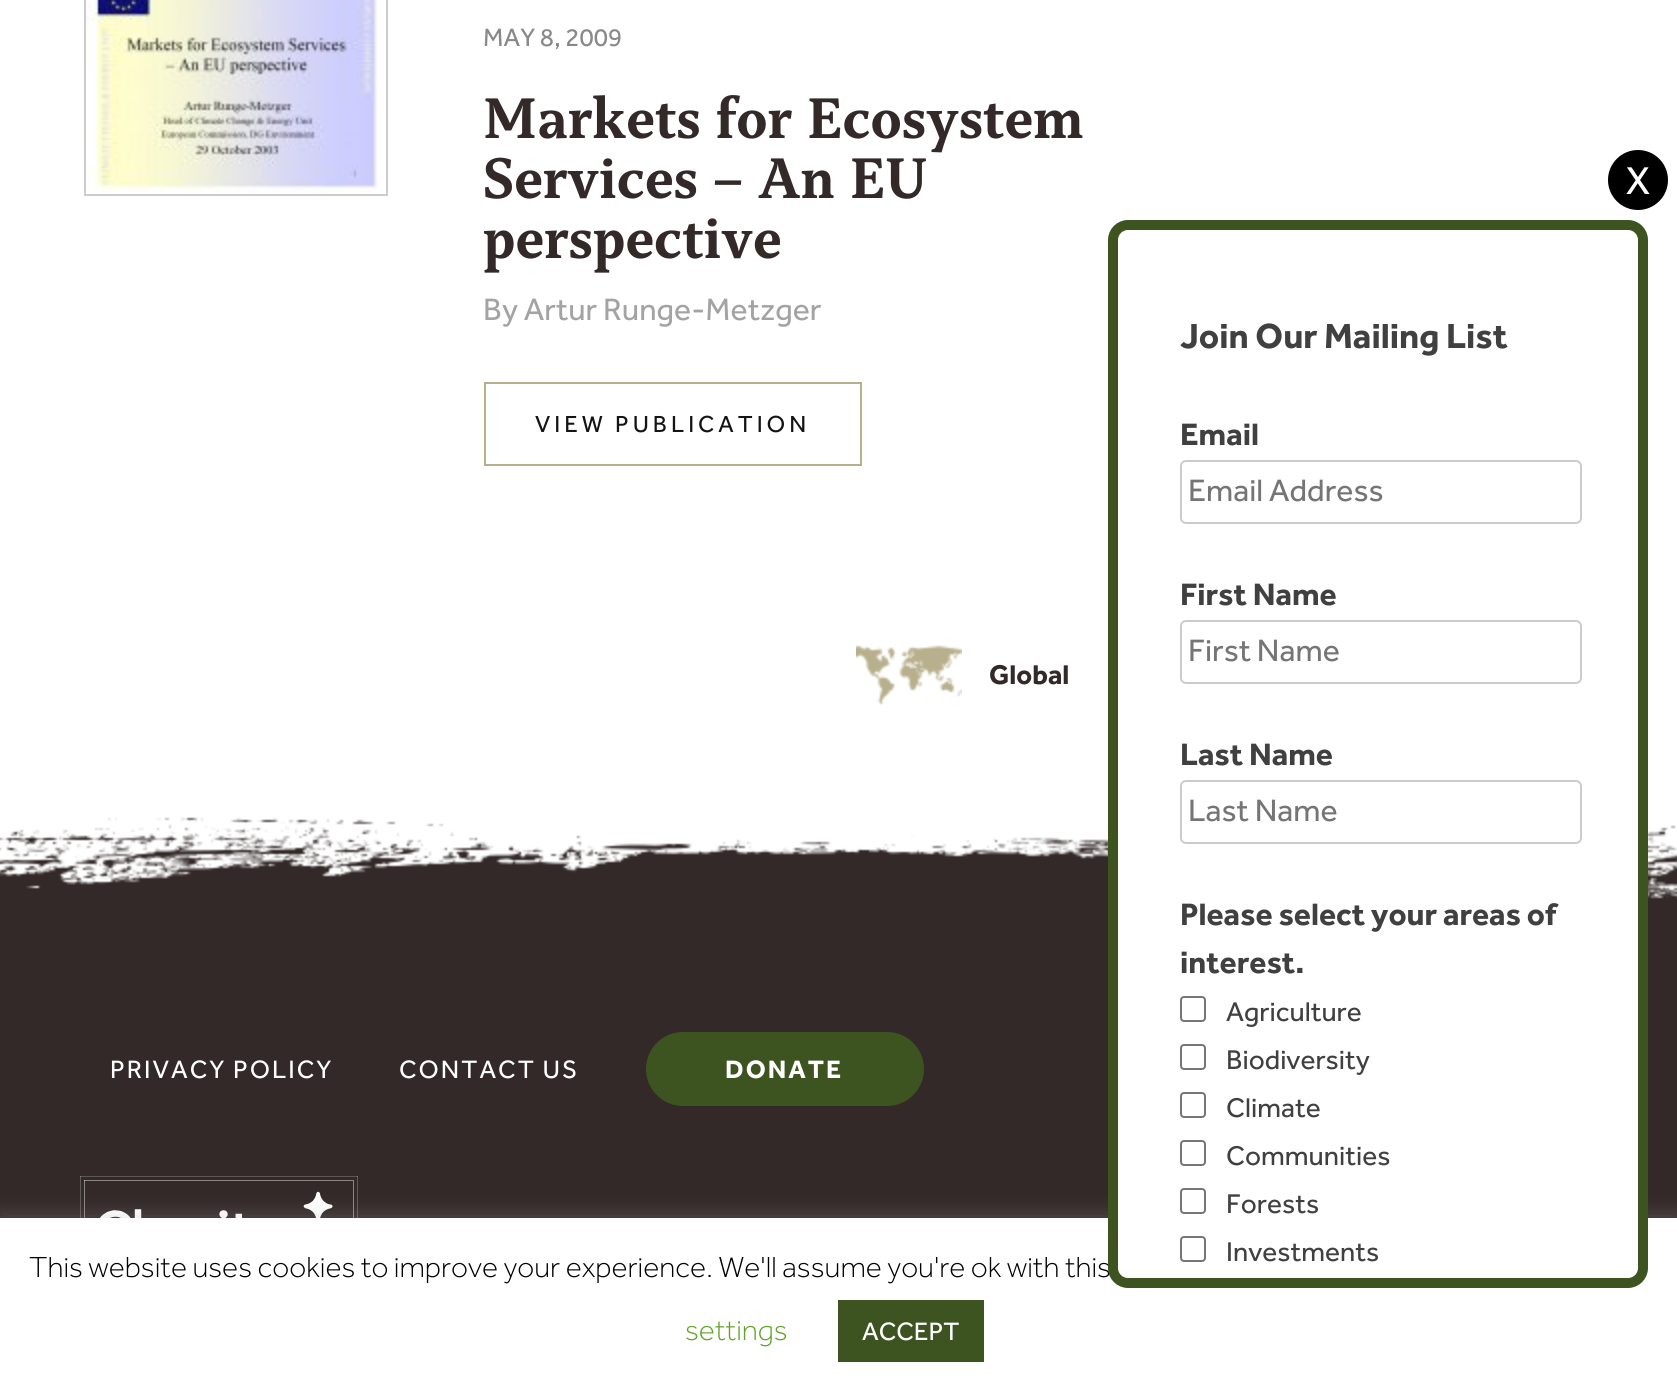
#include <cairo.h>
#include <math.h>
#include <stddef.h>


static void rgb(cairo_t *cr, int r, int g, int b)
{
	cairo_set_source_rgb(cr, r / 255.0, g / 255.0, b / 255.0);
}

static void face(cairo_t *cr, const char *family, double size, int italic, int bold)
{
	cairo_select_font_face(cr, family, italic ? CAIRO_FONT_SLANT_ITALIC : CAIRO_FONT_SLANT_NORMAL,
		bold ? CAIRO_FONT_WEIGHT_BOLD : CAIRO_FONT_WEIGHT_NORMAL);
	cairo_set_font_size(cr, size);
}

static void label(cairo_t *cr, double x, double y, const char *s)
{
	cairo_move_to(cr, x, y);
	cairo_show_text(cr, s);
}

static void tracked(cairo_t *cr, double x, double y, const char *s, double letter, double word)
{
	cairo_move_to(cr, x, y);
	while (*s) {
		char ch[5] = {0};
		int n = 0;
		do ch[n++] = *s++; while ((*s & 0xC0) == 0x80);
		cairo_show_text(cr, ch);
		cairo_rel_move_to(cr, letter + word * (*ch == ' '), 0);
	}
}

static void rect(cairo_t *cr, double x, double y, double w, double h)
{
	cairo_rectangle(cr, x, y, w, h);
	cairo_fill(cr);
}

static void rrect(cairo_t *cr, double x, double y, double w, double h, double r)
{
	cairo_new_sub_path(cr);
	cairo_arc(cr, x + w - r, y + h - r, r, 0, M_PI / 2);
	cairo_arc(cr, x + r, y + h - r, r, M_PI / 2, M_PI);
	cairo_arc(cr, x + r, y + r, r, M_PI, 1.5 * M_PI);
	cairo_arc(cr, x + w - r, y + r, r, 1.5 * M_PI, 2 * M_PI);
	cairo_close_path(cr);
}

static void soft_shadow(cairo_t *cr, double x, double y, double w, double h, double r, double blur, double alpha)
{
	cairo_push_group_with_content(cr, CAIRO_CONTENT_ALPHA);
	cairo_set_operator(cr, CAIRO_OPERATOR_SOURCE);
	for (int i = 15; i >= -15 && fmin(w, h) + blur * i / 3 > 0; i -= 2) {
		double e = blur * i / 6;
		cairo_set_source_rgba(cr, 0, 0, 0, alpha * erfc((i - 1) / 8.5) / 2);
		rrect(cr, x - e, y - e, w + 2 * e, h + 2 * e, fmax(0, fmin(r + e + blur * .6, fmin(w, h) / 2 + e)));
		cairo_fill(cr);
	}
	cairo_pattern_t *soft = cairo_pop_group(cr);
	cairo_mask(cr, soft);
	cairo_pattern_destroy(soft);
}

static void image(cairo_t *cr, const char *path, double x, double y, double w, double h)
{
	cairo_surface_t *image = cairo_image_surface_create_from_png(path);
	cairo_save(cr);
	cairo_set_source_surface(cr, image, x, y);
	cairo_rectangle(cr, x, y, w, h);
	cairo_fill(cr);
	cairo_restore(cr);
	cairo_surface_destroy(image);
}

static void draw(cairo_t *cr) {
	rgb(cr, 255, 255, 255);
	cairo_paint(cr);
	rgb(cr, 51, 41, 40);
	rect(cr, 0, 899, 1677, 319);
	image(cr, "image0.png", 0, 816, 1677, 83);
	face(cr, "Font", 26, 0, 0);
	rgb(cr, 255, 255, 255);
	tracked(cr, 110, 1078, "PRIVACY POLICY", 2, 0);
	tracked(cr, 399, 1078, "CONTACT US", 2, 0);
	rgb(cr, 61, 84, 32);
	rrect(cr, 646, 1032, 278, 74, 37);
	cairo_fill(cr);
	face(cr, "Font", 26, 0, 1);
	rgb(cr, 255, 255, 255);
	tracked(cr, 725, 1078, "DONATE", 2, 0);
	image(cr, "image1.png", 80, 1176, 278, 42);
	cairo_rectangle(cr, 85, -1, 302, 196);
	rgb(cr, 204, 204, 204);
	cairo_stroke(cr);
	image(cr, "image2.png", 86, 0, 292, 194);
	face(cr, "Font", 26, 0, 0);
	rgb(cr, 137, 137, 137);
	label(cr, 483, 46, "MAY 8, 2009");
	face(cr, "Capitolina", 60, 0, 1);
	rgb(cr, 51, 41, 40);
	label(cr, 483, 138, "Markets for Ecosystem");
	label(cr, 483, 198, "Services – An EU");
	label(cr, 483, 258, "perspective");
	face(cr, "Font", 32, 0, 0);
	rgb(cr, 163, 163, 163);
	label(cr, 483, 320, "By Artur Runge-Metzger");
	cairo_rectangle(cr, 485, 383, 376, 82);
	rgb(cr, 184, 176, 141);
	cairo_stroke(cr);
	face(cr, "Font", 24, 0, 0);
	rgb(cr, 20, 20, 20);
	tracked(cr, 535, 432, "VIEW PUBLICATION", 4, 0);
	image(cr, "image3.png", 856, 645, 106, 60);
	face(cr, "Font", 28, 0, 1);
	rgb(cr, 51, 41, 40);
	label(cr, 989, 684, "Global");
	rgb(cr, 0, 0, 0);
	cairo_new_path(cr);
	cairo_arc(cr, 1638, 180, 30, 0, 2 * M_PI);
	cairo_fill(cr);
	face(cr, "Font", 40, 0, 0);
	rgb(cr, 255, 255, 255);
	label(cr, 1626, 194, "X");
	rgb(cr, 172, 171, 171);
	soft_shadow(cr, 0, 1216, 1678, 178, 0, 10, 0.3);
	rgb(cr, 255, 255, 255);
	rect(cr, 0, 1218, 1677, 177);
	face(cr, "Font Light", 30, 0, 0);
	rgb(cr, 0, 0, 0);
	label(cr, 29, 1277, "This website uses cookies to improve your experience. We'll assume you're ok with this");
	rgb(cr, 255, 255, 255);
	rrect(cr, 1113, 225, 530, 1058, 15);
	cairo_fill_preserve(cr);
	rgb(cr, 61, 84, 32);
	cairo_set_line_width(cr, 10);
	cairo_stroke(cr);
	face(cr, "Font", 36, 0, 1);
	rgb(cr, 64, 64, 64);
	label(cr, 1180, 348, "Join Our Mailing List");
	face(cr, "Font", 32, 0, 1);
	label(cr, 1180, 445, "Email");
	rrect(cr, 1181, 461, 400, 62, 5);
	rgb(cr, 204, 204, 204);
	cairo_set_line_width(cr, 2);
	cairo_stroke(cr);
	face(cr, "Font", 32, 0, 0);
	rgb(cr, 117, 117, 117);
	label(cr, 1188, 501, "Email Address");
	face(cr, "Font", 32, 0, 1);
	rgb(cr, 64, 64, 64);
	label(cr, 1180, 605, "First Name");
	rrect(cr, 1181, 621, 400, 62, 5);
	rgb(cr, 204, 204, 204);
	cairo_stroke(cr);
	face(cr, "Font", 32, 0, 0);
	rgb(cr, 117, 117, 117);
	label(cr, 1188, 661, "First Name");
	face(cr, "Font", 32, 0, 1);
	rgb(cr, 64, 64, 64);
	label(cr, 1180, 765, "Last Name");
	rrect(cr, 1181, 781, 400, 62, 5);
	rgb(cr, 204, 204, 204);
	cairo_stroke(cr);
	face(cr, "Font", 32, 0, 0);
	rgb(cr, 117, 117, 117);
	label(cr, 1188, 821, "Last Name");
	face(cr, "Font", 32, 0, 1);
	rgb(cr, 64, 64, 64);
	label(cr, 1180, 925, "Please select your areas of");
	label(cr, 1180, 973, "interest.");
	rrect(cr, 1181, 997, 24, 24, 3);
	rgb(cr, 118, 118, 118);
	cairo_stroke(cr);
	face(cr, "Font", 28, 0, 0);
	rgb(cr, 64, 64, 64);
	label(cr, 1226, 1021, "Agriculture");
	rrect(cr, 1181, 1045, 24, 24, 3);
	rgb(cr, 118, 118, 118);
	cairo_stroke(cr);
	rgb(cr, 64, 64, 64);
	label(cr, 1226, 1069, "Biodiversity");
	rrect(cr, 1181, 1093, 24, 24, 3);
	rgb(cr, 118, 118, 118);
	cairo_stroke(cr);
	rgb(cr, 64, 64, 64);
	label(cr, 1226, 1117, "Climate");
	rrect(cr, 1181, 1141, 24, 24, 3);
	rgb(cr, 118, 118, 118);
	cairo_stroke(cr);
	rgb(cr, 64, 64, 64);
	label(cr, 1226, 1165, "Communities");
	rrect(cr, 1181, 1189, 24, 24, 3);
	rgb(cr, 118, 118, 118);
	cairo_stroke(cr);
	rgb(cr, 64, 64, 64);
	label(cr, 1226, 1213, "Forests");
	rrect(cr, 1181, 1237, 24, 24, 3);
	rgb(cr, 118, 118, 118);
	cairo_stroke(cr);
	rgb(cr, 64, 64, 64);
	label(cr, 1226, 1261, "Investments");
	face(cr, "Font Light", 30, 0, 0);
	rgb(cr, 98, 163, 41);
	label(cr, 685, 1340, "settings");
	rgb(cr, 61, 84, 32);
	rect(cr, 838, 1300, 146, 62);
	face(cr, "Font", 26, 0, 0);
	rgb(cr, 255, 255, 255);
	label(cr, 862, 1340, "ACCEPT");
}

int main(void) {
	cairo_surface_t *surface = cairo_image_surface_create(CAIRO_FORMAT_RGB24, 1677, 1395);
	cairo_t *cr = cairo_create(surface);
	cairo_font_options_t *options = cairo_font_options_create();
	cairo_font_options_set_hint_metrics(options, CAIRO_HINT_METRICS_OFF);
	cairo_font_options_set_hint_style(options, CAIRO_HINT_STYLE_NONE);
	cairo_set_font_options(cr, options);
	cairo_set_miter_limit(cr, 4);
	draw(cr);
	cairo_surface_write_to_png(surface, "render.png");
	cairo_font_options_destroy(options);
	cairo_destroy(cr);
	cairo_surface_destroy(surface);
	return 0;
}
